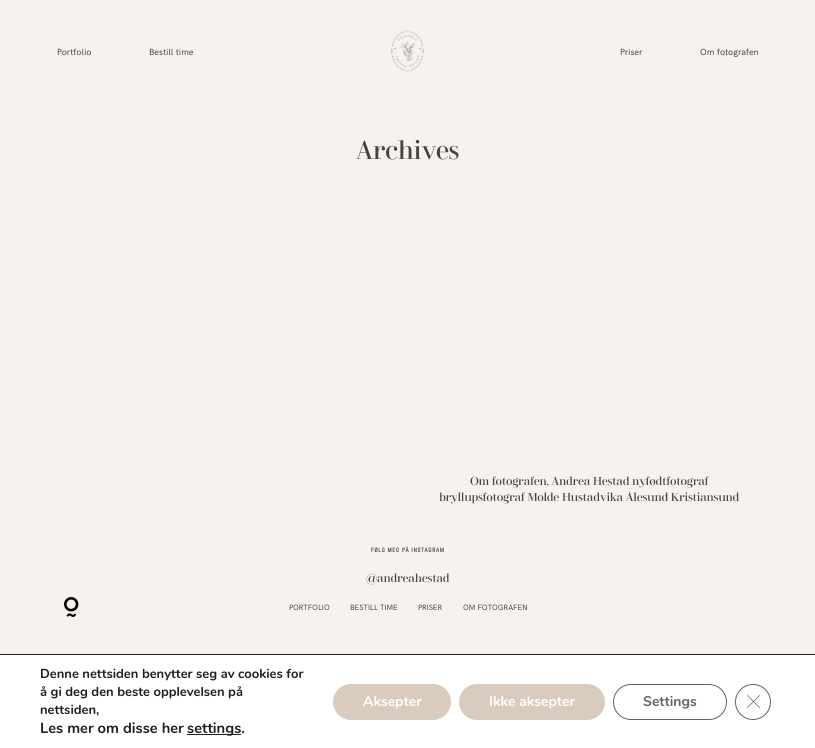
#include <cairo.h>
#include <math.h>
#include <stddef.h>


static void rgb(cairo_t *cr, int r, int g, int b)
{
	cairo_set_source_rgb(cr, r / 255.0, g / 255.0, b / 255.0);
}

static void face(cairo_t *cr, const char *family, double size, int italic, int bold)
{
	cairo_select_font_face(cr, family, italic ? CAIRO_FONT_SLANT_ITALIC : CAIRO_FONT_SLANT_NORMAL,
		bold ? CAIRO_FONT_WEIGHT_BOLD : CAIRO_FONT_WEIGHT_NORMAL);
	cairo_set_font_size(cr, size);
}

static void label(cairo_t *cr, double x, double y, const char *s)
{
	cairo_move_to(cr, x, y);
	cairo_show_text(cr, s);
}

static void tracked(cairo_t *cr, double x, double y, const char *s, double letter, double word)
{
	cairo_move_to(cr, x, y);
	while (*s) {
		char ch[5] = {0};
		int n = 0;
		do ch[n++] = *s++; while ((*s & 0xC0) == 0x80);
		cairo_show_text(cr, ch);
		cairo_rel_move_to(cr, letter + word * (*ch == ' '), 0);
	}
}

static void rect(cairo_t *cr, double x, double y, double w, double h)
{
	cairo_rectangle(cr, x, y, w, h);
	cairo_fill(cr);
}

static void rrect(cairo_t *cr, double x, double y, double w, double h, double r)
{
	cairo_new_sub_path(cr);
	cairo_arc(cr, x + w - r, y + h - r, r, 0, M_PI / 2);
	cairo_arc(cr, x + r, y + h - r, r, M_PI / 2, M_PI);
	cairo_arc(cr, x + r, y + r, r, M_PI, 1.5 * M_PI);
	cairo_arc(cr, x + w - r, y + r, r, 1.5 * M_PI, 2 * M_PI);
	cairo_close_path(cr);
}

static void image(cairo_t *cr, const char *path, double x, double y, double w, double h)
{
	cairo_surface_t *image = cairo_image_surface_create_from_png(path);
	cairo_save(cr);
	cairo_set_source_surface(cr, image, x, y);
	cairo_rectangle(cr, x, y, w, h);
	cairo_fill(cr);
	cairo_restore(cr);
	cairo_surface_destroy(image);
}

static void draw(cairo_t *cr) {
	rgb(cr, 246, 242, 240);
	cairo_paint(cr);
	face(cr, "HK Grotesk", 9, 0, 0);
	rgb(cr, 67, 68, 66);
	label(cr, 57, 55, "Portfolio");
	label(cr, 149, 55, "Bestill time");
	image(cr, "image0.png", 391, 30, 34, 42);
	label(cr, 620, 55, "Priser");
	label(cr, 700, 55, "Om fotografen");
	face(cr, "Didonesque", 25.5, 0, 0);
	tracked(cr, 356, 159, "Archives", -0.75, 0);
	face(cr, "Didonesque", 11.45, 0, 0);
	tracked(cr, 470, 485, "Om fotografen, Andrea Hestad nyfødtfotograf", -0.35, 0);
	tracked(cr, 439, 501, "bryllupsfotograf Molde Hustadvika Ålesund Kristiansund", -0.35, 0);
	face(cr, "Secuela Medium", 6.4, 0, 0);
	tracked(cr, 371, 552, "FØLG MEG PÅ INSTAGRAM", 0.6, 0);
	face(cr, "Didonesque", 11.45, 0, 0);
	tracked(cr, 366, 582, "@andreahestad", -0.35, 0);
	image(cr, "image1.png", 64, 597, 15, 20);
	face(cr, "HK Grotesk", 7.75, 0, 0);
	label(cr, 289, 610, "PORTFOLIO");
	label(cr, 350, 610, "BESTILL TIME");
	label(cr, 418, 610, "PRISER");
	label(cr, 463, 610, "OM FOTOGRAFEN");
	rgb(cr, 255, 255, 255);
	rect(cr, 0, 655, 815, 93);
	rgb(cr, 32, 32, 32);
	rect(cr, 0, 654, 815, 1);
	face(cr, "Nunito", 13, 0, 1);
	label(cr, 40, 678, "Denne nettsiden benytter seg av cookies for");
	label(cr, 40, 696, "å gi deg den beste opplevelsen på");
	label(cr, 40, 714, "nettsiden,");
	face(cr, "Nunito", 14.75, 0, 1);
	label(cr, 40, 733, "Les mer om disse her");
	rect(cr, 187, 734, 54, 1);
	label(cr, 187, 733, "settings.");
	rgb(cr, 217, 203, 190);
	rrect(cr, 333, 684, 118, 36, 18);
	cairo_fill(cr);
	face(cr, "Nunito", 14, 0, 1);
	rgb(cr, 255, 255, 255);
	label(cr, 363, 706, "Aksepter");
	rgb(cr, 217, 203, 190);
	rrect(cr, 459, 684, 146, 36, 18);
	cairo_fill(cr);
	rgb(cr, 255, 255, 255);
	label(cr, 489, 706, "Ikke aksepter");
	rrect(cr, 613.5, 684.5, 113, 35, 17.5);
	rgb(cr, 99, 99, 99);
	cairo_set_line_width(cr, 1);
	cairo_stroke(cr);
	label(cr, 643, 706, "Settings");
	cairo_new_path(cr);
	cairo_arc(cr, 753, 702, 17.5, 0, 2 * M_PI);
	rgb(cr, 98, 98, 98);
	cairo_stroke(cr);
	cairo_new_path(cr);
	cairo_move_to(cr, 759.5, 695);
	cairo_line_to(cr, 760, 695.5);
	cairo_line_to(cr, 747.5, 708);
	cairo_line_to(cr, 747, 707.5);
	cairo_close_path(cr);
	cairo_fill(cr);
	cairo_new_path(cr);
	cairo_move_to(cr, 747, 695.5);
	cairo_line_to(cr, 747.5, 695);
	cairo_line_to(cr, 760, 707.5);
	cairo_line_to(cr, 759.5, 708);
	cairo_close_path(cr);
	cairo_fill(cr);
}

int main(void) {
	cairo_surface_t *surface = cairo_image_surface_create(CAIRO_FORMAT_RGB24, 815, 748);
	cairo_t *cr = cairo_create(surface);
	cairo_font_options_t *options = cairo_font_options_create();
	cairo_font_options_set_hint_metrics(options, CAIRO_HINT_METRICS_OFF);
	cairo_font_options_set_hint_style(options, CAIRO_HINT_STYLE_NONE);
	cairo_set_font_options(cr, options);
	cairo_set_miter_limit(cr, 4);
	draw(cr);
	cairo_surface_write_to_png(surface, "render.png");
	cairo_font_options_destroy(options);
	cairo_destroy(cr);
	cairo_surface_destroy(surface);
	return 0;
}
